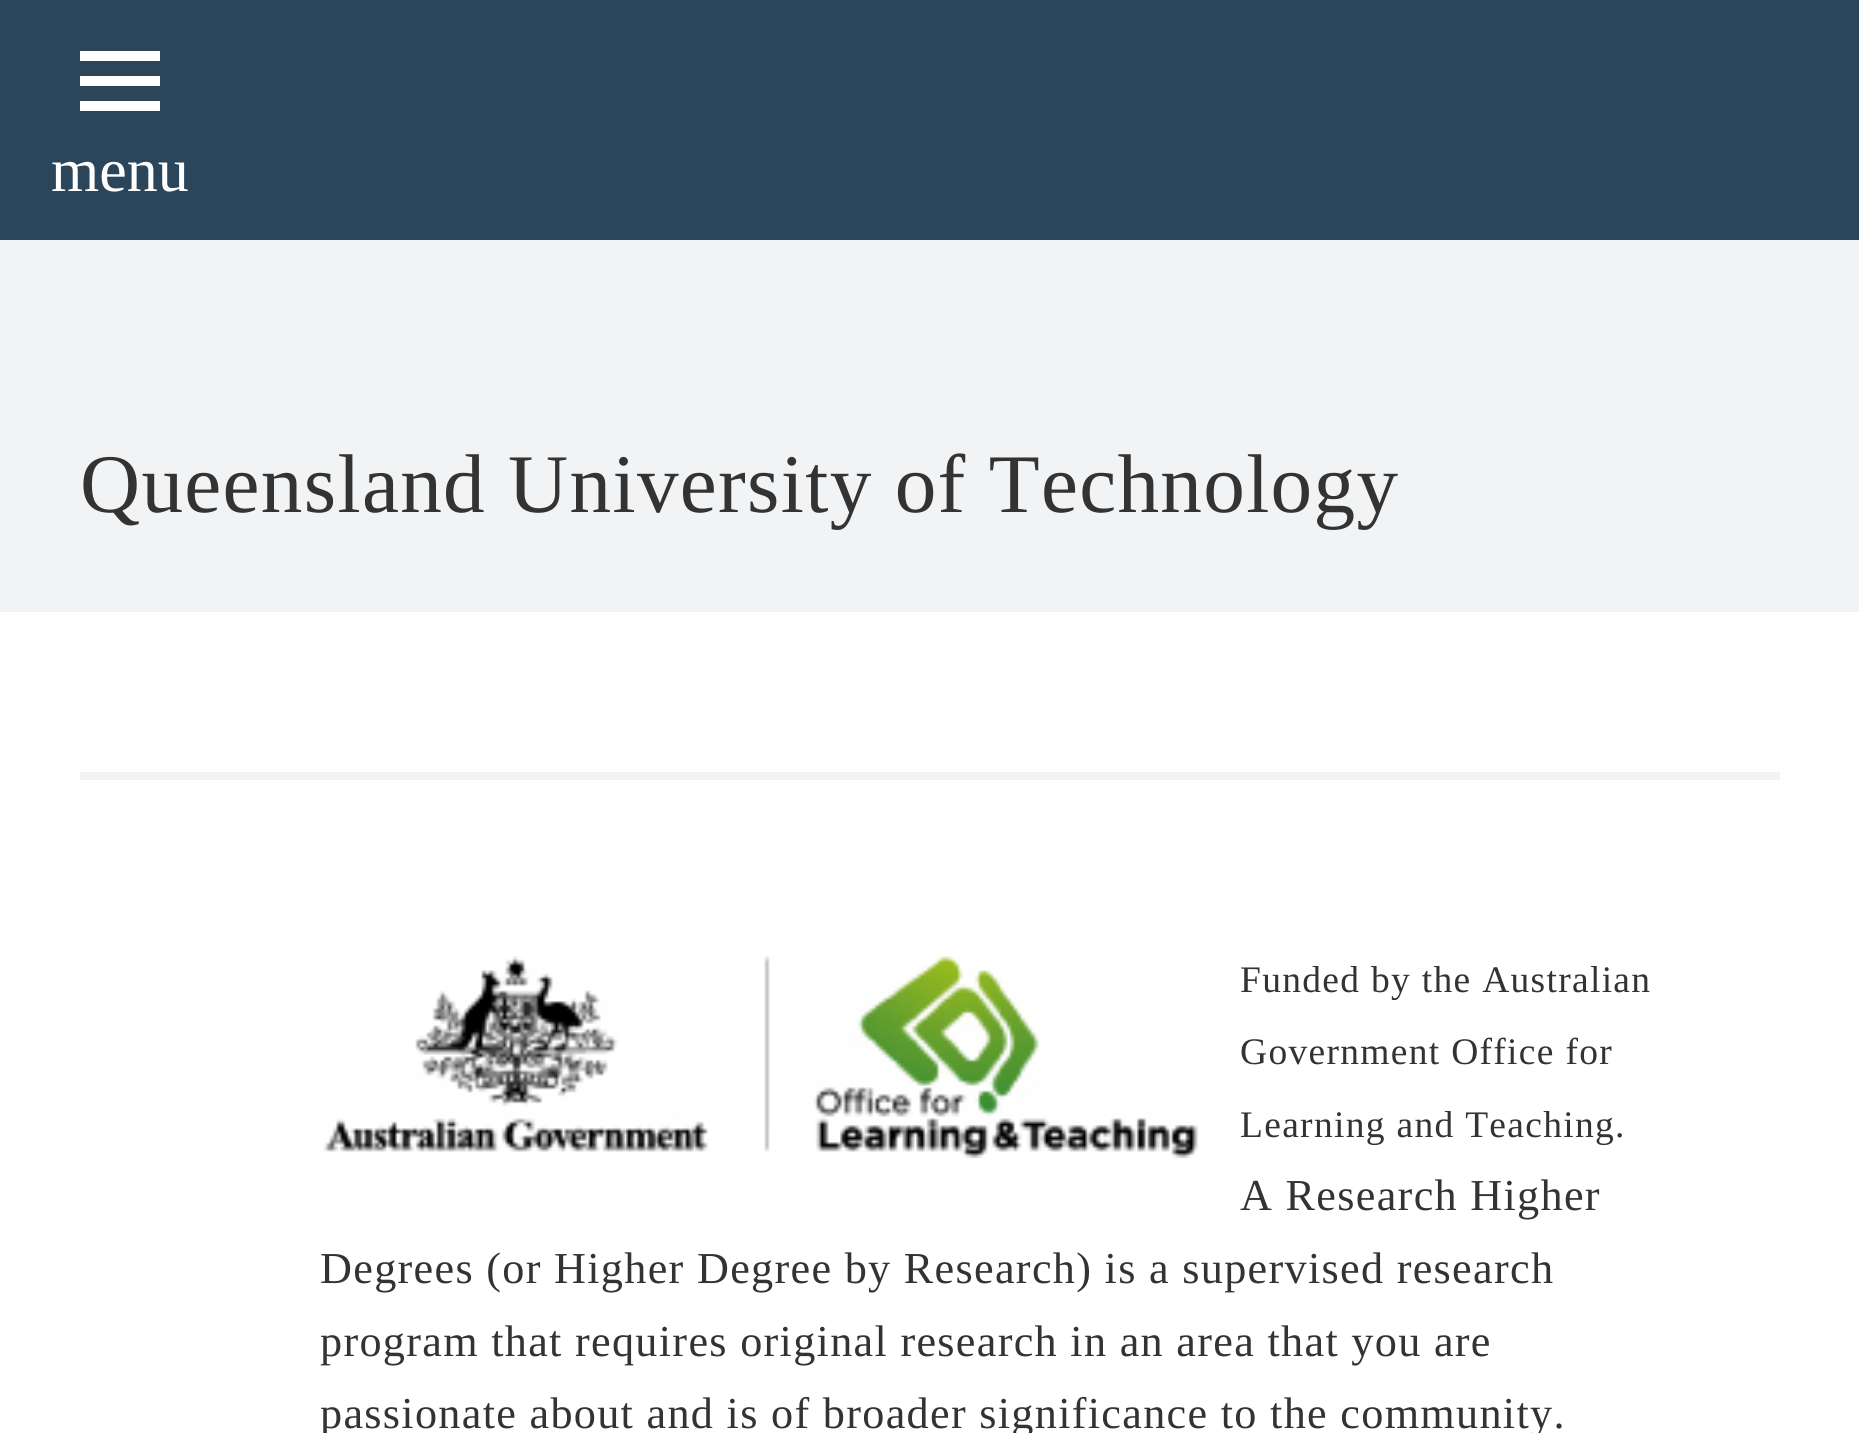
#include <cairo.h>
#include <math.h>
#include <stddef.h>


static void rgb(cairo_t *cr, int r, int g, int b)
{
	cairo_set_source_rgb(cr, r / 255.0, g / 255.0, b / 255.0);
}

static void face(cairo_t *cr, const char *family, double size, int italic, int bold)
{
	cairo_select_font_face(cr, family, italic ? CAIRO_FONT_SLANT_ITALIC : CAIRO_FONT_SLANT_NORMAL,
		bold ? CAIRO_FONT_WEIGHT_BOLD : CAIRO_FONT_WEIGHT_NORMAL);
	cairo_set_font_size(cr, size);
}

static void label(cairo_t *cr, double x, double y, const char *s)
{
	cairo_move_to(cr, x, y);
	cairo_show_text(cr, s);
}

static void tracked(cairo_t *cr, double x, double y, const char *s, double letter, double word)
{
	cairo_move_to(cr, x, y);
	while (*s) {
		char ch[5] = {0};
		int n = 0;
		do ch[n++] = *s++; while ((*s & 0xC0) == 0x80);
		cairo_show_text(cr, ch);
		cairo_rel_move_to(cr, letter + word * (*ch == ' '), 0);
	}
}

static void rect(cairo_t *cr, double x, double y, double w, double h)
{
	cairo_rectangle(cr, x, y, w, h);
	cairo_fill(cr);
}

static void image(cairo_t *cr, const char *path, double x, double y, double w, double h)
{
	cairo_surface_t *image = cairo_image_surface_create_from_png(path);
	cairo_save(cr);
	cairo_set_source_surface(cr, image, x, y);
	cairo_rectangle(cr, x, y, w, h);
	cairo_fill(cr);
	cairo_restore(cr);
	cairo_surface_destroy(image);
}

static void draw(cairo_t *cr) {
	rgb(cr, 255, 255, 255);
	cairo_paint(cr);
	rgb(cr, 43, 70, 90);
	rect(cr, 0, 0, 1859, 240);
	rgb(cr, 255, 255, 255);
	cairo_new_path(cr);
	cairo_move_to(cr, 80, 51);
	cairo_line_to(cr, 160, 51);
	cairo_line_to(cr, 160, 61);
	cairo_line_to(cr, 80, 61);
	cairo_close_path(cr);
	cairo_move_to(cr, 80, 76);
	cairo_line_to(cr, 160, 76);
	cairo_line_to(cr, 160, 86);
	cairo_line_to(cr, 80, 86);
	cairo_close_path(cr);
	cairo_move_to(cr, 80, 101);
	cairo_line_to(cr, 160, 101);
	cairo_line_to(cr, 160, 111);
	cairo_line_to(cr, 80, 111);
	cairo_close_path(cr);
	cairo_fill(cr);
	face(cr, "Liberation Serif", 62, 0, 0);
	label(cr, 51, 191, "menu");
	rgb(cr, 241, 243, 245);
	rect(cr, 0, 240, 1859, 372);
	face(cr, "Liberation Serif", 83.25, 0, 0);
	rgb(cr, 51, 51, 51);
	tracked(cr, 80, 512, "Queensland University of Technology", 1.3, 0);
	rgb(cr, 241, 243, 245);
	rect(cr, 80, 772, 1700, 8);
	image(cr, "image0.png", 323, 956, 875, 203);
	face(cr, "Liberation Serif", 37.5, 0, 0);
	rgb(cr, 51, 51, 51);
	tracked(cr, 1240, 992, "Funded by the Australian", 1.3, 0);
	tracked(cr, 1240, 1064, "Government Office for", 1.3, 0);
	tracked(cr, 1240, 1137, "Learning and Teaching.", 1.3, 0);
	face(cr, "Liberation Serif", 44.2, 0, 0);
	tracked(cr, 1240, 1210, "A Research Higher", 1.3, 0);
	tracked(cr, 320, 1283, "Degrees (or Higher Degree by Research) is a supervised research", 1.3, 0);
	tracked(cr, 320, 1356, "program that requires original research in an area that you are", 1.3, 0);
	tracked(cr, 320, 1428, "passionate about and is of broader significance to the community.", 1.3, 0);
}

int main(void) {
	cairo_surface_t *surface = cairo_image_surface_create(CAIRO_FORMAT_RGB24, 1859, 1433);
	cairo_t *cr = cairo_create(surface);
	cairo_font_options_t *options = cairo_font_options_create();
	cairo_font_options_set_hint_metrics(options, CAIRO_HINT_METRICS_OFF);
	cairo_font_options_set_hint_style(options, CAIRO_HINT_STYLE_NONE);
	cairo_set_font_options(cr, options);
	cairo_set_miter_limit(cr, 4);
	draw(cr);
	cairo_surface_write_to_png(surface, "render.png");
	cairo_font_options_destroy(options);
	cairo_destroy(cr);
	cairo_surface_destroy(surface);
	return 0;
}
